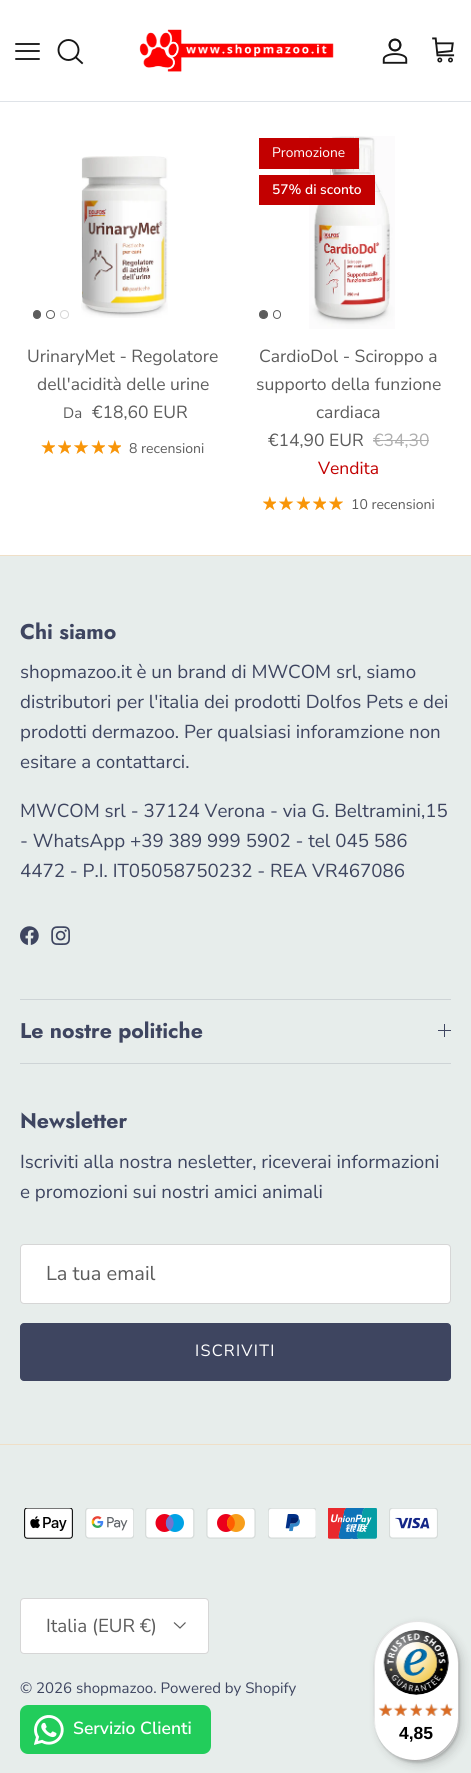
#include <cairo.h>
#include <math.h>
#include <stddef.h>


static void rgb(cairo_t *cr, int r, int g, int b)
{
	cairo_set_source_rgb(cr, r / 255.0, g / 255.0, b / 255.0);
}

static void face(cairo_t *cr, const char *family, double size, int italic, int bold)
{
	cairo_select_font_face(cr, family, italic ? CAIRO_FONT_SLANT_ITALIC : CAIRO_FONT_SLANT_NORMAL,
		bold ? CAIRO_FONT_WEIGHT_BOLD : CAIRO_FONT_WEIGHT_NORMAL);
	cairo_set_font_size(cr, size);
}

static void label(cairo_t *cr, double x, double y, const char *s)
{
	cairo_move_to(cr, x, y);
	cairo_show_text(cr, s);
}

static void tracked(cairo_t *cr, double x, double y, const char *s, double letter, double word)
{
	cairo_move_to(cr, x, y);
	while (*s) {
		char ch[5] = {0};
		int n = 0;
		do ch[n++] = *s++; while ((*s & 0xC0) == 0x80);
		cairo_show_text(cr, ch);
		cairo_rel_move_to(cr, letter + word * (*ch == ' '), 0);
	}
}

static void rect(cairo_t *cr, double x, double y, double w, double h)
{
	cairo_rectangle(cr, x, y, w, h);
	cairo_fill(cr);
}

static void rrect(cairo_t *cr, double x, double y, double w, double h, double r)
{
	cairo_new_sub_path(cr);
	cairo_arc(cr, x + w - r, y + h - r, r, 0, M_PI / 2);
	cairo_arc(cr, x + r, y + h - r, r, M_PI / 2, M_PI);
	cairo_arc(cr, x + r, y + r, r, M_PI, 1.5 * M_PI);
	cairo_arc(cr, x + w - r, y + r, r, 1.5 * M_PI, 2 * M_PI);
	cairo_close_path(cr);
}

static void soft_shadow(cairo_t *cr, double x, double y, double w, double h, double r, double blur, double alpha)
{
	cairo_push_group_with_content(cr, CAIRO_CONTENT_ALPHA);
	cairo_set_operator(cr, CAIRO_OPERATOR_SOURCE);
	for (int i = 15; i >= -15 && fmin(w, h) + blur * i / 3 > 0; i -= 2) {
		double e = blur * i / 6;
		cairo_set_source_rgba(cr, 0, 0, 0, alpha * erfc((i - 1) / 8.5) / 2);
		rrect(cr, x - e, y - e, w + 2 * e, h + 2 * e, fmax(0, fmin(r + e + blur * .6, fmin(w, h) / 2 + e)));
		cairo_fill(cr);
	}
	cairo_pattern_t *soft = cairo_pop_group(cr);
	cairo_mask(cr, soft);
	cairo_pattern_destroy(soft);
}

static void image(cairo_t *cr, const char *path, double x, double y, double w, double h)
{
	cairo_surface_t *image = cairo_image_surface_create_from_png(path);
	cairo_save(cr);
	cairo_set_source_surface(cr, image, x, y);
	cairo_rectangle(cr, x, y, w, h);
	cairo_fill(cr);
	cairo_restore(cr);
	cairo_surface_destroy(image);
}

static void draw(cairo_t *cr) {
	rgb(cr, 255, 255, 255);
	cairo_paint(cr);
	rgb(cr, 223, 227, 232);
	rect(cr, 0, 101, 471, 1);
	cairo_new_path(cr);
	cairo_move_to(cr, 16, 51);
	cairo_line_to(cr, 39, 51);
	cairo_move_to(cr, 16, 44);
	cairo_line_to(cr, 39, 44);
	cairo_move_to(cr, 16, 59);
	cairo_line_to(cr, 39, 59);
	rgb(cr, 23, 23, 23);
	cairo_set_line_width(cr, 1.9);
	cairo_set_line_cap(cr, CAIRO_LINE_CAP_ROUND);
	cairo_set_line_join(cr, CAIRO_LINE_JOIN_ROUND);
	cairo_stroke(cr);
	cairo_arc(cr, 68.5, 50, 10, 0, 2 * M_PI);
	cairo_set_line_cap(cr, CAIRO_LINE_CAP_BUTT);
	cairo_set_line_join(cr, CAIRO_LINE_JOIN_MITER);
	cairo_stroke(cr);
	cairo_new_path(cr);
	cairo_move_to(cr, 76, 57.5);
	cairo_line_to(cr, 82, 63);
	cairo_set_line_cap(cr, CAIRO_LINE_CAP_SQUARE);
	cairo_stroke(cr);
	image(cr, "image0.png", 139, 29, 195, 43);
	image(cr, "image1.png", 382, 38, 26, 26);
	image(cr, "image2.png", 432, 37, 23, 26);
	rgb(cr, 92, 92, 92);
	rrect(cr, 33.5, 310.5, 7, 8, 3.5);
	cairo_fill_preserve(cr);
	cairo_set_line_width(cr, 1);
	cairo_set_line_cap(cr, CAIRO_LINE_CAP_BUTT);
	cairo_stroke(cr);
	cairo_arc(cr, 50.5, 314.5, 4, 0, 2 * M_PI);
	cairo_stroke(cr);
	cairo_arc(cr, 64.5, 314.5, 4, 0, 2 * M_PI);
	rgb(cr, 214, 214, 214);
	cairo_stroke(cr);
	image(cr, "image3.png", 81, 156, 87, 162);
	face(cr, "Nunito Sans", 17.5, 0, 0);
	rgb(cr, 92, 92, 92);
	label(cr, 27, 362, "UrinaryMet - Regolatore");
	label(cr, 37, 390, "dell'acidità delle urine");
	face(cr, "Nunito Sans", 15, 0, 0);
	label(cr, 63, 418, "Da");
	face(cr, "Nunito Sans", 17.5, 0, 0);
	label(cr, 92, 418, "€18,60 EUR");
	image(cr, "image4.png", 41, 440, 14, 14);
	image(cr, "image5.png", 58, 440, 13, 14);
	image(cr, "image6.png", 74, 440, 14, 14);
	image(cr, "image4.png", 91, 440, 14, 14);
	image(cr, "image5.png", 108, 440, 13, 14);
	image(cr, "image7.png", 41, 440, 14, 14);
	image(cr, "image8.png", 58, 440, 13, 14);
	image(cr, "image9.png", 74, 440, 15, 14);
	image(cr, "image7.png", 91, 440, 14, 14);
	image(cr, "image8.png", 108, 440, 13, 14);
	face(cr, "Nunito Sans", 14, 0, 0);
	label(cr, 129, 453, "8 recensioni");
	image(cr, "image10.png", 309, 136, 86, 193);
	rgb(cr, 194, 0, 0);
	rect(cr, 259, 138, 100, 31);
	face(cr, "Nunito Sans", 13.75, 0, 0);
	rgb(cr, 255, 255, 255);
	label(cr, 272, 157, "Promozione");
	rgb(cr, 194, 0, 0);
	rect(cr, 259, 175, 116, 30);
	face(cr, "Nunito Sans SemiBold", 13.75, 0, 0);
	rgb(cr, 255, 255, 255);
	label(cr, 272, 194, "57% di sconto");
	rgb(cr, 92, 92, 92);
	cairo_new_path(cr);
	cairo_arc(cr, 263.5, 314.5, 4, 0, 2 * M_PI);
	cairo_fill_preserve(cr);
	cairo_stroke(cr);
	rrect(cr, 273.5, 310.5, 7, 8, 3.5);
	cairo_stroke(cr);
	face(cr, "Nunito Sans", 17.5, 0, 0);
	label(cr, 259, 362, "CardioDol - Sciroppo a");
	label(cr, 256, 390, "supporto della funzione");
	label(cr, 316, 418, "cardiaca");
	label(cr, 268, 446, "€14,90 EUR");
	rgb(cr, 174, 174, 174);
	label(cr, 373, 446, "€34,30");
	rect(cr, 373, 440, 56, 1);
	rgb(cr, 194, 0, 0);
	label(cr, 318, 474, "Vendita");
	image(cr, "image11.png", 263, 496, 13, 14);
	image(cr, "image12.png", 279, 496, 14, 14);
	image(cr, "image13.png", 296, 496, 14, 14);
	image(cr, "image11.png", 313, 496, 13, 14);
	image(cr, "image12.png", 329, 496, 14, 14);
	image(cr, "image14.png", 263, 496, 13, 14);
	image(cr, "image15.png", 279, 496, 15, 14);
	image(cr, "image16.png", 296, 496, 14, 14);
	image(cr, "image14.png", 313, 496, 13, 14);
	image(cr, "image17.png", 329, 496, 14, 14);
	face(cr, "Nunito Sans", 14, 0, 0);
	rgb(cr, 92, 92, 92);
	label(cr, 351, 509, "10 recensioni");
	rgb(cr, 231, 237, 235);
	rect(cr, 0, 556, 471, 1217);
	rgb(cr, 239, 223, 199);
	rect(cr, 0, 555, 471, 1);
	face(cr, "Jost", 21.25, 0, 1);
	rgb(cr, 62, 69, 96);
	label(cr, 20, 639, "Chi siamo");
	face(cr, "Nunito Sans", 18.75, 0, 0);
	label(cr, 20, 678, "shopmazoo.it è un brand di MWCOM srl, siamo");
	label(cr, 20, 708, "distributori per l'italia dei prodotti Dolfos Pets e dei");
	label(cr, 20, 738, "prodotti dermazoo. Per qualsiasi inforamzione non");
	label(cr, 20, 768, "esitare a contattarci.");
	label(cr, 20, 817, "MWCOM srl - 37124 Verona - via G. Beltramini,15");
	label(cr, 20, 847, "- WhatsApp +39 389 999 5902 - tel 045 586");
	label(cr, 20, 877, "4472 - P.I. IT05058750232 - REA VR467086");
	image(cr, "image18.png", 20, 926, 19, 19);
	image(cr, "image19.png", 51, 926, 19, 19);
	rgb(cr, 206, 212, 214);
	rect(cr, 20, 999, 431, 1);
	rect(cr, 20, 1063, 431, 1);
	face(cr, "Jost", 21.25, 0, 1);
	rgb(cr, 62, 69, 96);
	label(cr, 20, 1038, "Le nostre politiche");
	rect(cr, 444, 1024, 1, 13);
	rect(cr, 438, 1030, 13, 1);
	label(cr, 20, 1128, "Newsletter");
	face(cr, "Nunito Sans", 18.75, 0, 0);
	label(cr, 20, 1168, "Iscriviti alla nostra nesletter, riceverai informazioni");
	label(cr, 20, 1198, "e promozioni sui nostri amici animali");
	rgb(cr, 255, 255, 255);
	rrect(cr, 20.5, 1244.5, 430, 59, 3.5);
	cairo_fill_preserve(cr);
	rgb(cr, 214, 214, 214);
	cairo_stroke(cr);
	face(cr, "Nunito Sans", 20, 0, 0);
	rgb(cr, 92, 92, 92);
	label(cr, 46, 1280, "La tua email");
	rgb(cr, 62, 69, 96);
	rrect(cr, 20.5, 1323.5, 430, 57, 3.5);
	cairo_fill_preserve(cr);
	cairo_stroke(cr);
	face(cr, "Nunito Sans", 16.25, 0, 0);
	rgb(cr, 255, 255, 255);
	tracked(cr, 195, 1356, "ISCRIVITI", 1.25, 0);
	rgb(cr, 239, 223, 199);
	rect(cr, 0, 1444, 471, 1);
	image(cr, "image20.png", 24, 1508, 49, 31);
	image(cr, "image21.png", 85, 1508, 49, 31);
	image(cr, "image22.png", 145, 1508, 50, 31);
	image(cr, "image23.png", 206, 1508, 50, 31);
	image(cr, "image24.png", 268, 1508, 48, 31);
	image(cr, "image25.png", 328, 1508, 49, 31);
	image(cr, "image26.png", 389, 1508, 49, 31);
	rgb(cr, 255, 255, 255);
	rrect(cr, 20.5, 1598.5, 188, 55, 3.5);
	cairo_fill_preserve(cr);
	rgb(cr, 214, 214, 214);
	cairo_stroke(cr);
	face(cr, "Nunito Sans", 18.75, 0, 0);
	rgb(cr, 92, 92, 92);
	label(cr, 46, 1632, "Italia (EUR €)");
	cairo_new_path(cr);
	cairo_move_to(cr, 185.5, 1622.5);
	cairo_line_to(cr, 180, 1628);
	cairo_line_to(cr, 174, 1622.5);
	cairo_set_line_width(cr, 1.2);
	cairo_stroke(cr);
	face(cr, "Nunito Sans", 15, 0, 0);
	rgb(cr, 62, 69, 96);
	label(cr, 20, 1693, "© 2026 shopmazoo. Powered by Shopify");
	rgb(cr, 34, 205, 91);
	rrect(cr, 20, 1705, 191, 49, 8);
	cairo_fill(cr);
	image(cr, "image27.png", 34, 1715, 30, 30);
	face(cr, "Nunito Sans SemiBold", 17.5, 0, 0);
	rgb(cr, 255, 255, 255);
	label(cr, 73, 1734, "Servizio Clienti");
	rgb(cr, 0, 0, 0);
	soft_shadow(cr, 378, 1625, 85, 140, 42.5, 5, 0.15);
	soft_shadow(cr, 375, 1623, 85, 140, 42.5, 1, 0.15);
	rgb(cr, 255, 255, 255);
	rrect(cr, 374, 1621, 85, 140, 42.5);
	cairo_fill(cr);
	cairo_set_source_rgba(cr, 0, 0, 0, 0.1);
	cairo_new_path(cr);
	cairo_move_to(cr, 418, 1622);
	cairo_curve_to(cr, 432, 1622, 445, 1629, 452, 1641);
	cairo_curve_to(cr, 434, 1612, 391, 1615, 377, 1647);
	cairo_curve_to(cr, 372, 1659, 374, 1677, 374, 1691);
	cairo_curve_to(cr, 374, 1712, 371, 1733, 386, 1749);
	cairo_curve_to(cr, 379, 1741, 375, 1731, 375, 1720);
	cairo_line_to(cr, 375, 1665);
	cairo_curve_to(cr, 375, 1642, 394, 1622, 418, 1622);
	cairo_close_path(cr);
	cairo_fill(cr);
	cairo_set_source_rgba(cr, 0, 0, 0, 0.2);
	cairo_new_path(cr);
	cairo_move_to(cr, 392, 1753);
	cairo_curve_to(cr, 399, 1758, 407, 1761, 416, 1761);
	cairo_curve_to(cr, 440, 1761, 459, 1742, 459, 1718);
	cairo_line_to(cr, 459, 1664);
	cairo_curve_to(cr, 459, 1648, 451, 1635, 439, 1628);
	cairo_curve_to(cr, 451, 1635, 458, 1648, 458, 1662);
	cairo_line_to(cr, 458, 1718);
	cairo_curve_to(cr, 458, 1741, 438, 1760, 415, 1760);
	cairo_curve_to(cr, 407, 1760, 399, 1758, 392, 1753);
	cairo_close_path(cr);
	cairo_fill(cr);
	cairo_set_source_rgba(cr, 0.196, 0.196, 0.196, 0.2);
	cairo_new_path(cr);
	cairo_move_to(cr, 386, 1748);
	cairo_curve_to(cr, 394, 1756, 405, 1761, 416, 1761);
	cairo_curve_to(cr, 440, 1761, 459, 1742, 459, 1718);
	cairo_line_to(cr, 459, 1664);
	cairo_curve_to(cr, 459, 1649, 452, 1637, 442, 1629);
	cairo_curve_to(cr, 452, 1637, 458, 1650, 458, 1663);
	cairo_line_to(cr, 458, 1718);
	cairo_curve_to(cr, 458, 1741, 439, 1760, 416, 1760);
	cairo_curve_to(cr, 404, 1760, 394, 1756, 386, 1748);
	cairo_close_path(cr);
	cairo_fill(cr);
	cairo_set_source_rgba(cr, 1, 1, 1, 0.3);
	cairo_new_path(cr);
	cairo_move_to(cr, 416, 1621);
	cairo_curve_to(cr, 440, 1621, 459, 1640, 459, 1664);
	cairo_line_to(cr, 459, 1718);
	cairo_curve_to(cr, 459, 1742, 440, 1761, 416, 1761);
	cairo_curve_to(cr, 439, 1761, 458, 1742, 458, 1718);
	cairo_line_to(cr, 458, 1663);
	cairo_curve_to(cr, 458, 1640, 439, 1621, 416, 1621);
	cairo_close_path(cr);
	cairo_fill(cr);
	image(cr, "image28.png", 383, 1630, 66, 65);
	image(cr, "image34.png", 379, 1704, 14, 12);
	image(cr, "image29.png", 378, 1703, 15, 13);
	image(cr, "image35.png", 395, 1704, 12, 12);
	image(cr, "image30.png", 393, 1703, 15, 13);
	image(cr, "image36.png", 410, 1704, 12, 12);
	image(cr, "image31.png", 410, 1703, 13, 13);
	image(cr, "image37.png", 425, 1704, 14, 12);
	image(cr, "image32.png", 425, 1703, 13, 13);
	image(cr, "image38.png", 440, 1704, 14, 12);
	image(cr, "image33.png", 440, 1703, 12, 13);
	face(cr, "Liberation Sans", 17.5, 0, 1);
	rgb(cr, 0, 0, 0);
	label(cr, 399, 1739, "4,85");
}

int main(void) {
	cairo_surface_t *surface = cairo_image_surface_create(CAIRO_FORMAT_RGB24, 471, 1773);
	cairo_t *cr = cairo_create(surface);
	cairo_font_options_t *options = cairo_font_options_create();
	cairo_font_options_set_hint_metrics(options, CAIRO_HINT_METRICS_OFF);
	cairo_font_options_set_hint_style(options, CAIRO_HINT_STYLE_NONE);
	cairo_set_font_options(cr, options);
	cairo_set_miter_limit(cr, 4);
	draw(cr);
	cairo_surface_write_to_png(surface, "render.png");
	cairo_font_options_destroy(options);
	cairo_destroy(cr);
	cairo_surface_destroy(surface);
	return 0;
}
